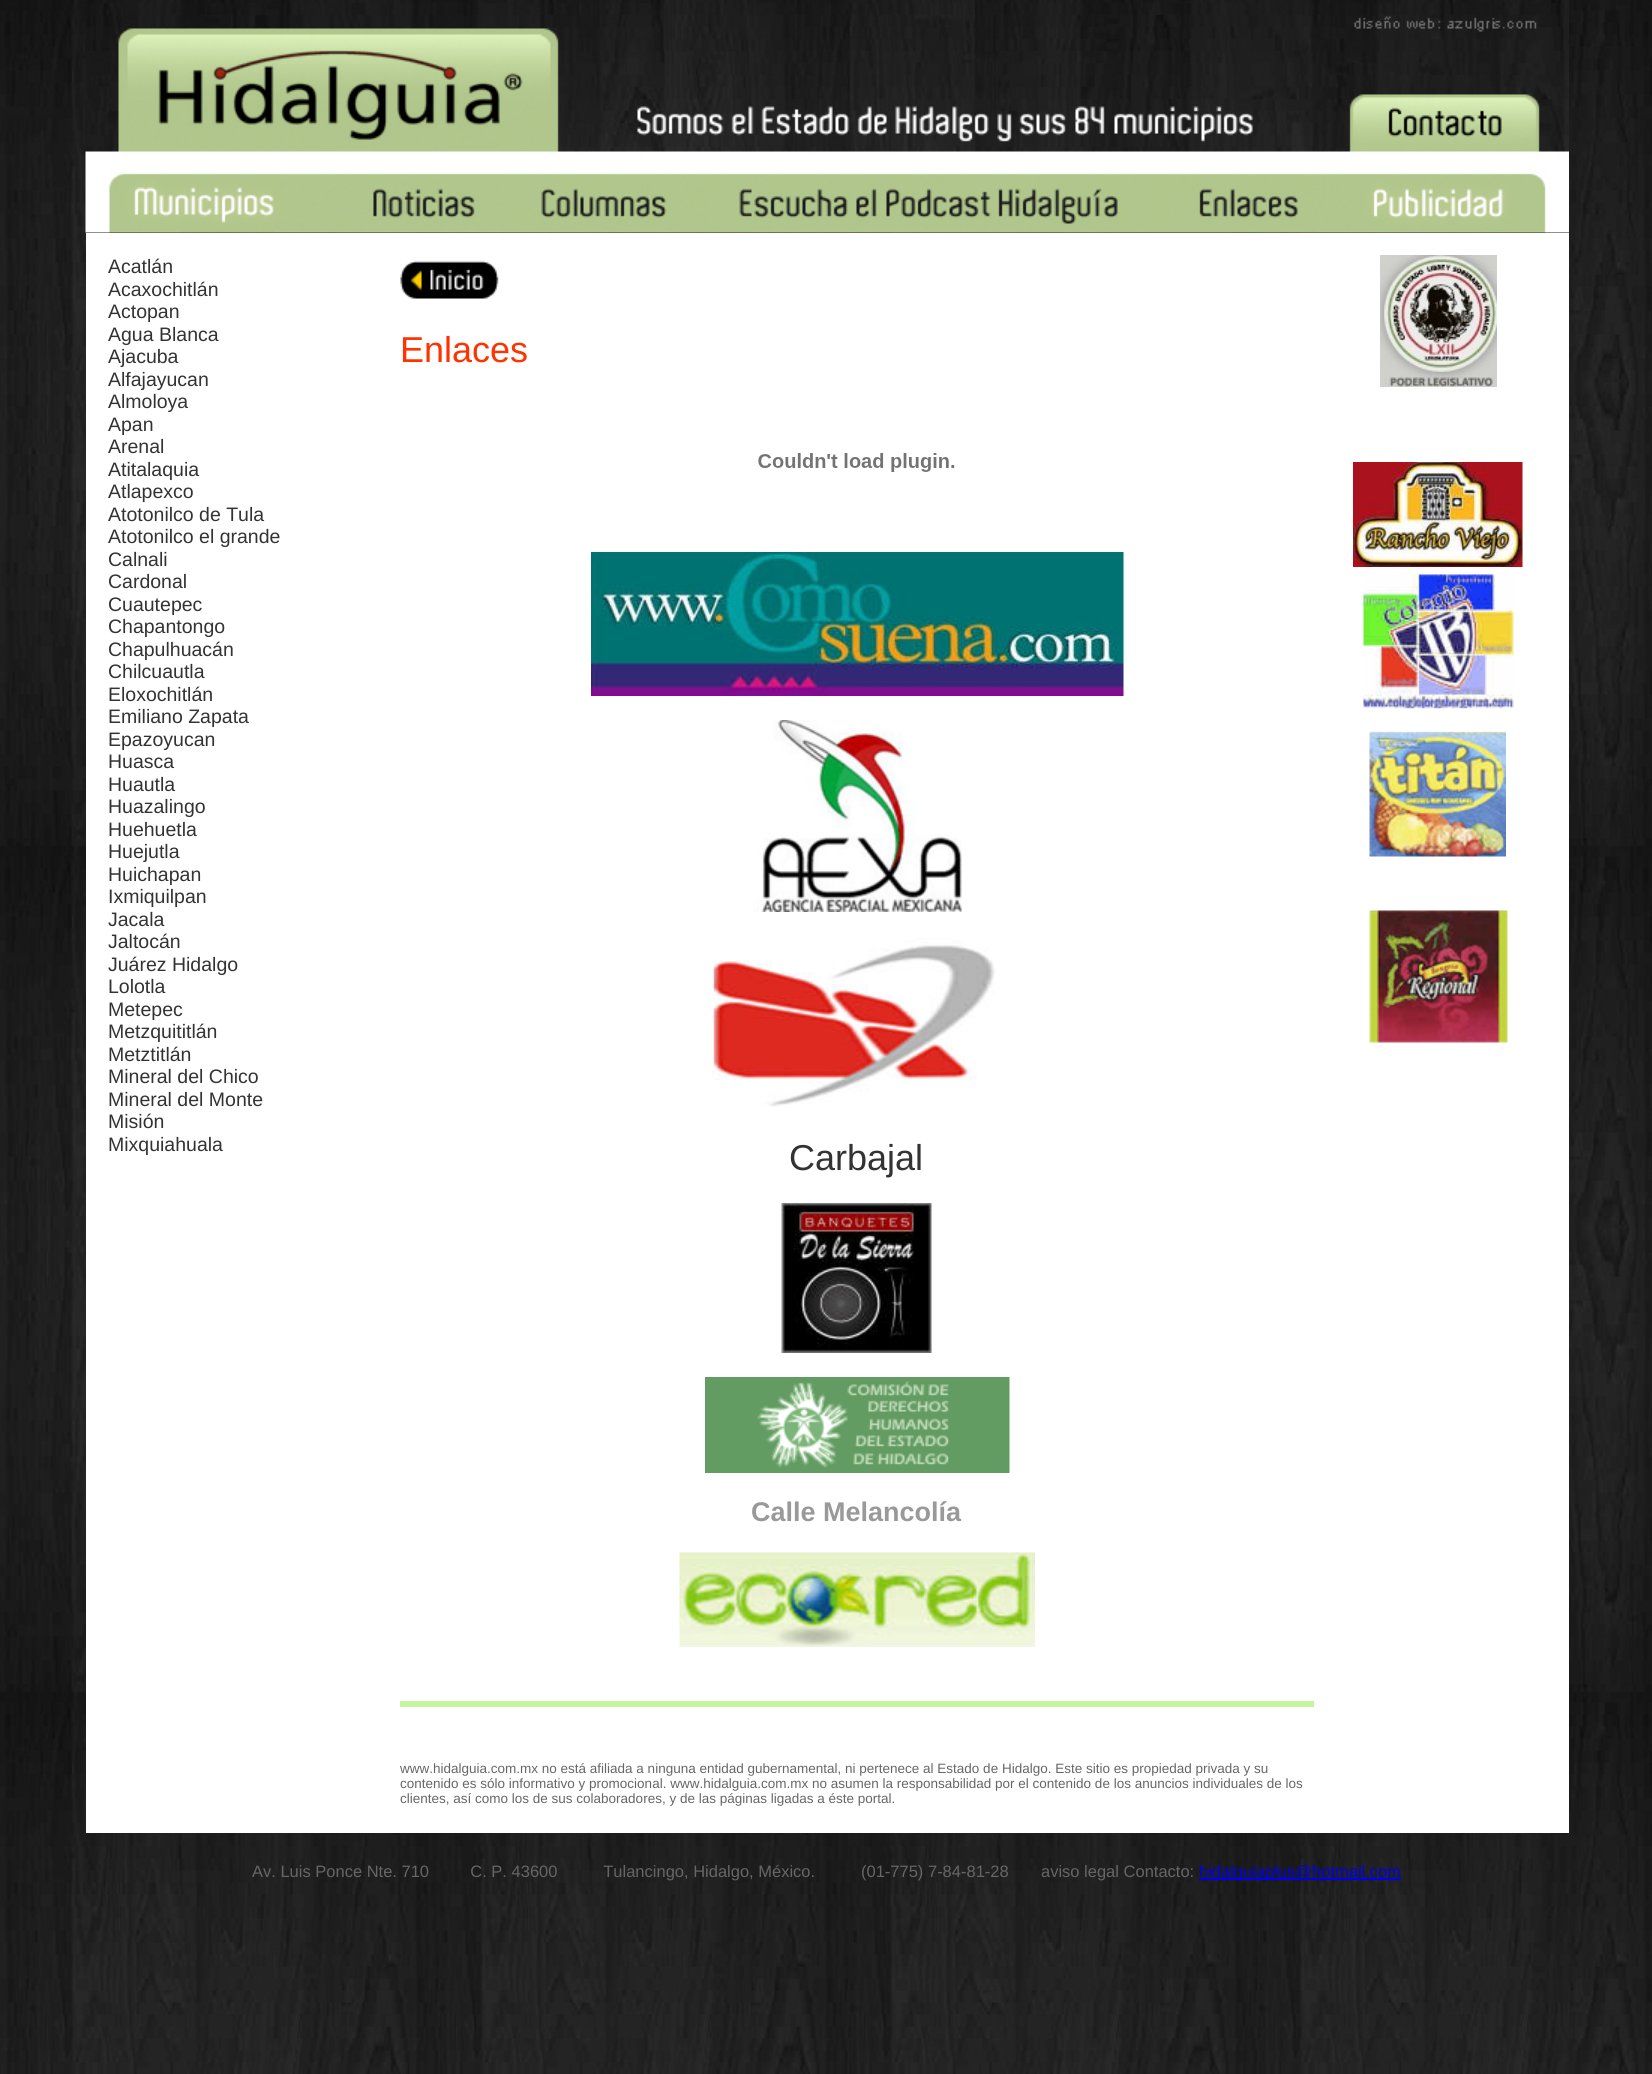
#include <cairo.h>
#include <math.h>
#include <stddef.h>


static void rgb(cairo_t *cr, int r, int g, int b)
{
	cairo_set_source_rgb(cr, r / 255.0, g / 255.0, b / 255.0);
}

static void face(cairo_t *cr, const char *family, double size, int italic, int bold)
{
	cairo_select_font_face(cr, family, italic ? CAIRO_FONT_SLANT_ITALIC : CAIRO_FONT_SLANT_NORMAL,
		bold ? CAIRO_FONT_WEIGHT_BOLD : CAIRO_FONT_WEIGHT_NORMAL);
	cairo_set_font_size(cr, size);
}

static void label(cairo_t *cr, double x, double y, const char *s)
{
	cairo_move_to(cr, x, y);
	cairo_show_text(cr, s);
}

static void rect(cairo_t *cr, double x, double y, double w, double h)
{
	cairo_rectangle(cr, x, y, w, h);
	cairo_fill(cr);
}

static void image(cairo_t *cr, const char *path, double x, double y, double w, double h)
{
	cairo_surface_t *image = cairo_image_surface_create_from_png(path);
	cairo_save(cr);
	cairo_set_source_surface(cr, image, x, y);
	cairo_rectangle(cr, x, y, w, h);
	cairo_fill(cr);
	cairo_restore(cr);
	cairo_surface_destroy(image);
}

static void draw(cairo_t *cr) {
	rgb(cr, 255, 255, 255);
	cairo_paint(cr);
	image(cr, "image0.png", 0, 0, 1652, 2074);
	image(cr, "image1.png", 85, 0, 1484, 233);
	rgb(cr, 255, 255, 255);
	rect(cr, 86, 233, 1483, 1600);
	face(cr, "Liberation Sans", 19.5, 0, 0);
	rgb(cr, 51, 51, 51);
	label(cr, 108, 273, "Acatlán");
	label(cr, 108, 296, "Acaxochitlán");
	label(cr, 108, 318, "Actopan");
	label(cr, 108, 341, "Agua Blanca");
	label(cr, 108, 363, "Ajacuba");
	label(cr, 108, 386, "Alfajayucan");
	label(cr, 108, 408, "Almoloya");
	label(cr, 108, 431, "Apan");
	label(cr, 108, 453, "Arenal");
	label(cr, 108, 476, "Atitalaquia");
	label(cr, 108, 498, "Atlapexco");
	label(cr, 108, 521, "Atotonilco de Tula");
	label(cr, 108, 543, "Atotonilco el grande");
	label(cr, 108, 566, "Calnali");
	label(cr, 108, 588, "Cardonal");
	label(cr, 108, 611, "Cuautepec");
	label(cr, 108, 633, "Chapantongo");
	label(cr, 108, 656, "Chapulhuacán");
	label(cr, 108, 678, "Chilcuautla");
	label(cr, 108, 701, "Eloxochitlán");
	label(cr, 108, 723, "Emiliano Zapata");
	label(cr, 108, 746, "Epazoyucan");
	label(cr, 108, 768, "Huasca");
	label(cr, 108, 791, "Huautla");
	label(cr, 108, 813, "Huazalingo");
	label(cr, 108, 836, "Huehuetla");
	label(cr, 108, 858, "Huejutla");
	label(cr, 108, 881, "Huichapan");
	label(cr, 108, 903, "Ixmiquilpan");
	label(cr, 108, 926, "Jacala");
	label(cr, 108, 948, "Jaltocán");
	label(cr, 108, 971, "Juárez Hidalgo");
	label(cr, 108, 993, "Lolotla");
	label(cr, 108, 1016, "Metepec");
	label(cr, 108, 1038, "Metzquititlán");
	label(cr, 108, 1061, "Metztitlán");
	label(cr, 108, 1083, "Mineral del Chico");
	label(cr, 108, 1106, "Mineral del Monte");
	label(cr, 108, 1128, "Misión");
	label(cr, 108, 1151, "Mixquiahuala");
	image(cr, "image2.png", 400, 260, 99, 39);
	face(cr, "Liberation Sans", 36, 0, 0);
	rgb(cr, 255, 51, 0);
	label(cr, 400, 362, "Enlaces");
	image(cr, "image3.png", 758, 453, 197, 19);
	image(cr, "image4.png", 591, 552, 533, 144);
	image(cr, "image5.png", 753, 720, 209, 192);
	image(cr, "image6.png", 712, 938, 284, 169);
	rgb(cr, 51, 51, 51);
	label(cr, 789, 1170, "Carbajal");
	image(cr, "image7.png", 781, 1203, 151, 150);
	image(cr, "image8.png", 705, 1377, 305, 96);
	face(cr, "Liberation Sans", 27, 0, 1);
	rgb(cr, 153, 153, 153);
	label(cr, 751, 1521, "Calle Melancolía");
	image(cr, "image9.png", 679, 1552, 356, 95);
	rgb(cr, 195, 244, 158);
	rect(cr, 400, 1701, 914, 6);
	image(cr, "image10.png", 1380, 255, 117, 132);
	image(cr, "image11.png", 1353, 462, 170, 105);
	image(cr, "image12.png", 1363, 574, 151, 135);
	image(cr, "image13.png", 1369, 731, 137, 126);
	image(cr, "image14.png", 1369, 910, 139, 133);
	face(cr, "Liberation Sans", 13.5, 0, 0);
	rgb(cr, 102, 102, 102);
	label(cr, 400, 1773, "www.hidalguia.com.mx no está afiliada a ninguna entidad gubernamental, ni pertenece al Estado de Hidalgo. Este sitio es propiedad privada y su");
	label(cr, 400, 1788, "contenido es sólo informativo y promocional. www.hidalguia.com.mx no asumen la responsabilidad por el contenido de los anuncios individuales de los");
	label(cr, 400, 1803, "clientes, así como los de sus colaboradores, y de las páginas ligadas a éste portal.");
	face(cr, "Liberation Sans", 16.5, 0, 0);
	label(cr, 252, 1877, "Av. Luis Ponce Nte. 710         C. P. 43600          Tulancingo, Hidalgo, México.");
	label(cr, 861, 1877, "(01-775) 7-84-81-28");
	label(cr, 1041, 1877, "aviso legal Contacto:");
	rgb(cr, 0, 0, 238);
	rect(cr, 1199, 1878, 202, 2);
	label(cr, 1199, 1877, "hidalguiaplus@hotmail.com");
}

int main(void) {
	cairo_surface_t *surface = cairo_image_surface_create(CAIRO_FORMAT_RGB24, 1652, 2074);
	cairo_t *cr = cairo_create(surface);
	cairo_font_options_t *options = cairo_font_options_create();
	cairo_font_options_set_hint_metrics(options, CAIRO_HINT_METRICS_OFF);
	cairo_font_options_set_hint_style(options, CAIRO_HINT_STYLE_NONE);
	cairo_set_font_options(cr, options);
	cairo_set_miter_limit(cr, 4);
	draw(cr);
	cairo_surface_write_to_png(surface, "render.png");
	cairo_font_options_destroy(options);
	cairo_destroy(cr);
	cairo_surface_destroy(surface);
	return 0;
}
